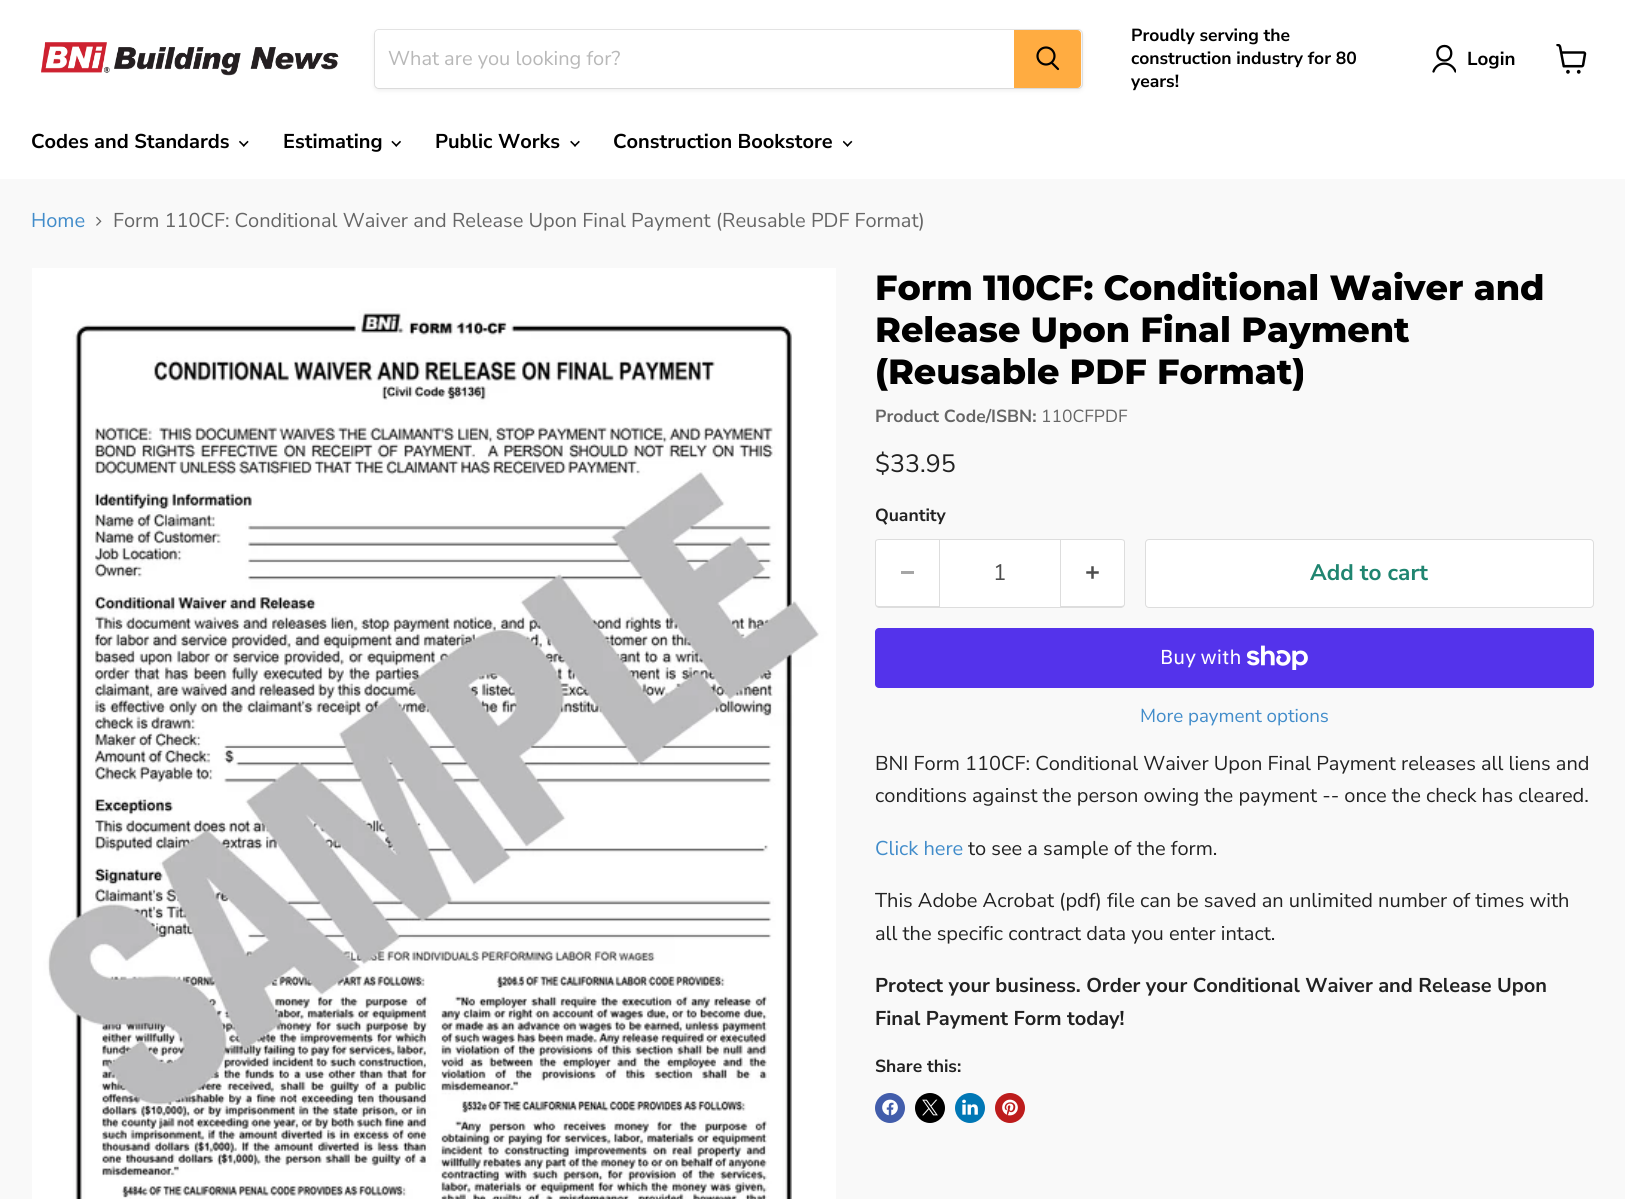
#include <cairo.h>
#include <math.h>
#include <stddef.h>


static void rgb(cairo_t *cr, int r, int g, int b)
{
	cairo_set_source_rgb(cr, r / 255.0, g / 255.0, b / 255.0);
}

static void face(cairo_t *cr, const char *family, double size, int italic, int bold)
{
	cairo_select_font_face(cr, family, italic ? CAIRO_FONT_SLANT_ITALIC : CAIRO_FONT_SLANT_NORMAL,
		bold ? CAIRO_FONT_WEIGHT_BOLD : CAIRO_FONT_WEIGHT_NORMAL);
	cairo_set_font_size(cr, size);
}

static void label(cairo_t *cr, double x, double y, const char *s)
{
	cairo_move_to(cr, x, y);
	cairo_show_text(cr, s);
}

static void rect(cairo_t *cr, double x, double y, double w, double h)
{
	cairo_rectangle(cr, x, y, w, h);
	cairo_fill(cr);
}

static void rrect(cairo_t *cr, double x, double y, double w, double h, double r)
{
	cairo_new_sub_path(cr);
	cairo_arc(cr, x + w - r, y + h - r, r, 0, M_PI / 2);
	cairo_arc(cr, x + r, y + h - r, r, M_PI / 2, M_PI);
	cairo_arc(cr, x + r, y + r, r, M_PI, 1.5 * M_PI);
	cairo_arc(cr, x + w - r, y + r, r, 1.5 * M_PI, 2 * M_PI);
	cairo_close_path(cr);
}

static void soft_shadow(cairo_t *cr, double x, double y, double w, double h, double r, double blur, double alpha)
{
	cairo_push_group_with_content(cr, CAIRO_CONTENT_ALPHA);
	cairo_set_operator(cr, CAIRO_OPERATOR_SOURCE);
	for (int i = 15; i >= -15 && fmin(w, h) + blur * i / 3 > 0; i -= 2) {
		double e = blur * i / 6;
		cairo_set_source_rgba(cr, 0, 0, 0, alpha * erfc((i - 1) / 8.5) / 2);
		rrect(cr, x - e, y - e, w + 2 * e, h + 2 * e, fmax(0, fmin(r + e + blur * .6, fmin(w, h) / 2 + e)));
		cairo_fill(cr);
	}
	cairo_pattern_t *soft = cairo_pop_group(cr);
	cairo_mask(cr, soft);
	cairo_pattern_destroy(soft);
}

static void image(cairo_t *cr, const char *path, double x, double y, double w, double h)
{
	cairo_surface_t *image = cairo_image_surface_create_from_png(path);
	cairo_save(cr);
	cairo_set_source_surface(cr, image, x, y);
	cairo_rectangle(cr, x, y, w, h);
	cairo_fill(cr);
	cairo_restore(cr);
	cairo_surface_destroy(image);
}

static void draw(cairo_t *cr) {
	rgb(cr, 249, 249, 249);
	cairo_paint(cr);
	rgb(cr, 255, 255, 255);
	rect(cr, 0, 0, 1625, 179);
	image(cr, "image0.png", 41, 42, 298, 34);
	rgb(cr, 125, 125, 125);
	soft_shadow(cr, 374, 31, 709, 60, 5, 2, 0.11);
	rrect(cr, 374.5, 29.5, 708, 59, 4.5);
	cairo_set_source_rgba(cr, 0.49, 0.49, 0.49, 0.2);
	cairo_set_line_width(cr, 1);
	cairo_stroke(cr);
	rgb(cr, 255, 255, 255);
	cairo_new_path(cr);
	cairo_move_to(cr, 379, 30);
	cairo_line_to(cr, 1014, 30);
	cairo_line_to(cr, 1014, 88);
	cairo_line_to(cr, 379, 88);
	cairo_curve_to(cr, 377, 88, 375, 86, 375, 84);
	cairo_line_to(cr, 375, 34);
	cairo_curve_to(cr, 375, 32, 377, 30, 379, 30);
	cairo_close_path(cr);
	cairo_fill(cr);
	face(cr, "Nunito Sans", 20, 0, 0);
	rgb(cr, 184, 184, 184);
	label(cr, 388, 65, "What are you looking for?");
	rgb(cr, 255, 172, 65);
	cairo_new_path(cr);
	cairo_move_to(cr, 1014.5, 30.5);
	cairo_line_to(cr, 1077, 30.5);
	cairo_curve_to(cr, 1079, 30.5, 1080.5, 32, 1080.5, 34);
	cairo_line_to(cr, 1080.5, 84);
	cairo_curve_to(cr, 1080.5, 86, 1079, 87.5, 1077, 87.5);
	cairo_line_to(cr, 1014.5, 87.5);
	cairo_close_path(cr);
	cairo_fill_preserve(cr);
	cairo_stroke(cr);
	cairo_new_path(cr);
	cairo_move_to(cr, 1058, 69);
	cairo_line_to(cr, 1052, 63);
	rgb(cr, 0, 0, 0);
	cairo_set_line_width(cr, 2.2);
	cairo_set_line_cap(cr, CAIRO_LINE_CAP_ROUND);
	cairo_stroke(cr);
	cairo_arc(cr, 1046, 56, 8.5, 0, 2 * M_PI);
	cairo_set_line_cap(cr, CAIRO_LINE_CAP_BUTT);
	cairo_stroke(cr);
	face(cr, "Nunito Sans", 17.5, 0, 1);
	label(cr, 1131, 41, "Proudly serving the");
	label(cr, 1131, 64, "construction industry for 80");
	label(cr, 1131, 87, "years!");
	cairo_new_path(cr);
	cairo_move_to(cr, 1444.5, 60.5);
	cairo_curve_to(cr, 1453.5, 60.5, 1453.5, 46, 1444.5, 46);
	cairo_curve_to(cr, 1435, 46, 1435, 60.5, 1444.5, 60.5);
	cairo_close_path(cr);
	cairo_set_line_width(cr, 2.3);
	cairo_set_line_cap(cr, CAIRO_LINE_CAP_ROUND);
	cairo_set_line_join(cr, CAIRO_LINE_JOIN_ROUND);
	cairo_stroke(cr);
	cairo_save(cr);
	cairo_rectangle(cr, 1431, 44, 25, 30);
	cairo_clip(cr);
	cairo_new_path(cr);
	cairo_move_to(cr, 1455.5, 71.5);
	cairo_curve_to(cr, 1451.5, 61, 1437, 61, 1433.5, 71.5);
	cairo_stroke(cr);
	cairo_restore(cr);
	face(cr, "Nunito Sans", 18.75, 0, 1);
	label(cr, 1467, 65, "Login");
	image(cr, "image1.png", 1556, 44, 31, 30);
	face(cr, "Nunito Sans", 20, 0, 1);
	label(cr, 31, 148, "Codes and Standards");
	image(cr, "image2.png", 239, 140, 10, 7);
	label(cr, 283, 148, "Estimating");
	image(cr, "image3.png", 391, 140, 10, 7);
	label(cr, 435, 148, "Public Works");
	image(cr, "image4.png", 570, 140, 10, 7);
	label(cr, 613, 148, "Construction Bookstore");
	image(cr, "image5.png", 843, 140, 10, 7);
	face(cr, "Nunito Sans", 20, 0, 0);
	rgb(cr, 65, 140, 202);
	label(cr, 31, 227, "Home");
	image(cr, "image6.png", 96, 216, 6, 10);
	rgb(cr, 102, 102, 102);
	label(cr, 113, 227, "Form 110CF: Conditional Waiver and Release Upon Final Payment (Reusable PDF Format)");
	image(cr, "image7.png", 32, 268, 804, 931);
	face(cr, "Montserrat ExtraBold", 35, 0, 0);
	rgb(cr, 0, 0, 0);
	label(cr, 875, 300, "Form 110CF: Conditional Waiver and");
	label(cr, 875, 342, "Release Upon Final Payment");
	label(cr, 875, 384, "(Reusable PDF Format)");
	face(cr, "Nunito Sans", 17.5, 0, 1);
	rgb(cr, 102, 102, 102);
	label(cr, 875, 422, "Product Code/ISBN:");
	face(cr, "Nunito Sans", 17.5, 0, 0);
	label(cr, 1041, 422, "110CFPDF");
	face(cr, "Nunito Sans", 25, 0, 0);
	rgb(cr, 34, 34, 34);
	label(cr, 875, 472, "$33.95");
	face(cr, "Nunito Sans", 17.5, 0, 1);
	label(cr, 875, 521, "Quantity");
	rgb(cr, 255, 255, 255);
	cairo_new_path(cr);
	cairo_move_to(cr, 879, 539);
	cairo_line_to(cr, 939, 539);
	cairo_line_to(cr, 939, 608);
	cairo_line_to(cr, 879, 608);
	cairo_curve_to(cr, 877, 608, 875, 606, 875, 604);
	cairo_line_to(cr, 875, 543);
	cairo_curve_to(cr, 875, 541, 877, 539, 879, 539);
	cairo_close_path(cr);
	cairo_fill(cr);
	rgb(cr, 221, 221, 221);
	cairo_set_fill_rule(cr, CAIRO_FILL_RULE_EVEN_ODD);
	cairo_new_path(cr);
	cairo_move_to(cr, 879, 539);
	cairo_line_to(cr, 939, 539);
	cairo_line_to(cr, 939, 608);
	cairo_line_to(cr, 879, 608);
	cairo_curve_to(cr, 877, 608, 875, 606, 875, 604);
	cairo_line_to(cr, 875, 542);
	cairo_curve_to(cr, 875, 540, 877, 539, 879, 539);
	cairo_close_path(cr);
	cairo_move_to(cr, 879, 540);
	cairo_line_to(cr, 939, 540);
	cairo_line_to(cr, 939, 606);
	cairo_line_to(cr, 879, 606);
	cairo_curve_to(cr, 877, 606, 876, 605, 876, 604);
	cairo_line_to(cr, 876, 542);
	cairo_curve_to(cr, 876, 541, 877, 540, 879, 540);
	cairo_close_path(cr);
	cairo_fill(cr);
	rgb(cr, 166, 166, 166);
	rect(cr, 901, 571, 13, 3);
	rgb(cr, 255, 255, 255);
	cairo_rectangle(cr, 939.5, 539.5, 121, 68);
	cairo_fill_preserve(cr);
	rgb(cr, 221, 221, 221);
	cairo_set_line_width(cr, 1);
	cairo_set_line_cap(cr, CAIRO_LINE_CAP_BUTT);
	cairo_set_line_join(cr, CAIRO_LINE_JOIN_MITER);
	cairo_stroke(cr);
	face(cr, "Nunito Sans", 22.5, 0, 0);
	rgb(cr, 77, 77, 77);
	label(cr, 993, 580, "1");
	rgb(cr, 255, 255, 255);
	cairo_new_path(cr);
	cairo_move_to(cr, 1061, 539);
	cairo_line_to(cr, 1121, 539);
	cairo_curve_to(cr, 1123, 539, 1125, 541, 1125, 543);
	cairo_line_to(cr, 1125, 604);
	cairo_curve_to(cr, 1125, 606, 1123, 608, 1121, 608);
	cairo_line_to(cr, 1061, 608);
	cairo_close_path(cr);
	cairo_fill(cr);
	rgb(cr, 221, 221, 221);
	cairo_new_path(cr);
	cairo_move_to(cr, 1061, 539);
	cairo_line_to(cr, 1121, 539);
	cairo_curve_to(cr, 1123, 539, 1125, 540, 1125, 542);
	cairo_line_to(cr, 1125, 604);
	cairo_curve_to(cr, 1125, 606, 1123, 608, 1121, 608);
	cairo_line_to(cr, 1061, 608);
	cairo_close_path(cr);
	cairo_move_to(cr, 1061, 540);
	cairo_line_to(cr, 1121, 540);
	cairo_curve_to(cr, 1123, 540, 1124, 541, 1124, 542);
	cairo_line_to(cr, 1124, 604);
	cairo_curve_to(cr, 1124, 605, 1123, 606, 1121, 606);
	cairo_line_to(cr, 1061, 606);
	cairo_close_path(cr);
	cairo_fill(cr);
	image(cr, "image8.png", 1086, 566, 13, 13);
	rgb(cr, 255, 255, 255);
	rrect(cr, 1145.5, 539.5, 448, 68, 3.5);
	cairo_fill_preserve(cr);
	rgb(cr, 221, 221, 221);
	cairo_stroke(cr);
	face(cr, "Nunito Sans", 22.5, 0, 1);
	rgb(cr, 32, 133, 112);
	label(cr, 1310, 580, "Add to cart");
	rgb(cr, 84, 51, 235);
	rrect(cr, 875, 628, 719, 60, 4);
	cairo_fill(cr);
	face(cr, "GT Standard", 20, 0, 0);
	rgb(cr, 255, 255, 255);
	label(cr, 1160, 664, "Buy with");
	image(cr, "image9.png", 1246, 645, 62, 25);
	face(cr, "Nunito Sans", 18.75, 0, 0);
	rgb(cr, 65, 140, 202);
	label(cr, 1140, 722, "More payment options");
	face(cr, "Nunito Sans", 20, 0, 0);
	rgb(cr, 34, 34, 34);
	label(cr, 875, 770, "BNI Form 110CF: Conditional Waiver Upon Final Payment releases all liens and");
	label(cr, 875, 802, "conditions against the person owing the payment -- once the check has cleared.");
	rgb(cr, 65, 140, 202);
	label(cr, 875, 855, "Click here");
	rgb(cr, 34, 34, 34);
	label(cr, 968, 855, "to see a sample of the form.");
	label(cr, 875, 907, "This Adobe Acrobat (pdf) file can be saved an unlimited number of times with");
	label(cr, 875, 940, "all the specific contract data you enter intact.");
	face(cr, "Nunito Sans", 20, 0, 1);
	label(cr, 875, 992, "Protect your business. Order your Conditional Waiver and Release Upon");
	label(cr, 875, 1025, "Final Payment Form today!");
	face(cr, "Nunito Sans", 17.5, 0, 1);
	label(cr, 875, 1072, "Share this:");
	rgb(cr, 66, 93, 171);
	cairo_new_path(cr);
	cairo_arc(cr, 890, 1108, 15, 0, 2 * M_PI);
	cairo_fill(cr);
	image(cr, "image10.png", 882, 1099, 16, 17);
	rgb(cr, 0, 0, 0);
	cairo_arc(cr, 930, 1108, 15, 0, 2 * M_PI);
	cairo_fill(cr);
	image(cr, "image11.png", 922, 1099, 16, 17);
	rgb(cr, 0, 119, 181);
	cairo_arc(cr, 970, 1108, 15, 0, 2 * M_PI);
	cairo_fill(cr);
	image(cr, "image12.png", 962, 1099, 16, 16);
	rgb(cr, 189, 28, 28);
	cairo_arc(cr, 1010, 1108, 15, 0, 2 * M_PI);
	cairo_fill(cr);
	image(cr, "image13.png", 1002, 1099, 16, 17);
}

int main(void) {
	cairo_surface_t *surface = cairo_image_surface_create(CAIRO_FORMAT_RGB24, 1625, 1199);
	cairo_t *cr = cairo_create(surface);
	cairo_font_options_t *options = cairo_font_options_create();
	cairo_font_options_set_hint_metrics(options, CAIRO_HINT_METRICS_OFF);
	cairo_font_options_set_hint_style(options, CAIRO_HINT_STYLE_NONE);
	cairo_set_font_options(cr, options);
	cairo_set_miter_limit(cr, 4);
	draw(cr);
	cairo_surface_write_to_png(surface, "render.png");
	cairo_font_options_destroy(options);
	cairo_destroy(cr);
	cairo_surface_destroy(surface);
	return 0;
}
